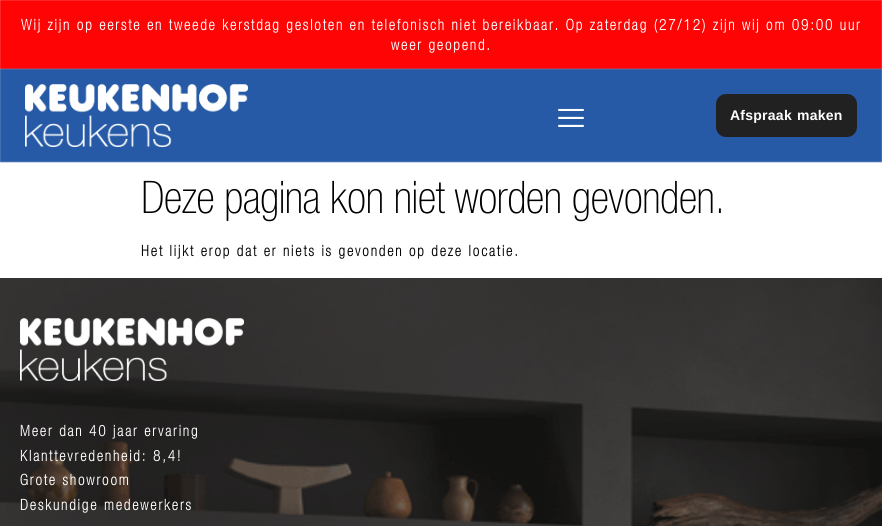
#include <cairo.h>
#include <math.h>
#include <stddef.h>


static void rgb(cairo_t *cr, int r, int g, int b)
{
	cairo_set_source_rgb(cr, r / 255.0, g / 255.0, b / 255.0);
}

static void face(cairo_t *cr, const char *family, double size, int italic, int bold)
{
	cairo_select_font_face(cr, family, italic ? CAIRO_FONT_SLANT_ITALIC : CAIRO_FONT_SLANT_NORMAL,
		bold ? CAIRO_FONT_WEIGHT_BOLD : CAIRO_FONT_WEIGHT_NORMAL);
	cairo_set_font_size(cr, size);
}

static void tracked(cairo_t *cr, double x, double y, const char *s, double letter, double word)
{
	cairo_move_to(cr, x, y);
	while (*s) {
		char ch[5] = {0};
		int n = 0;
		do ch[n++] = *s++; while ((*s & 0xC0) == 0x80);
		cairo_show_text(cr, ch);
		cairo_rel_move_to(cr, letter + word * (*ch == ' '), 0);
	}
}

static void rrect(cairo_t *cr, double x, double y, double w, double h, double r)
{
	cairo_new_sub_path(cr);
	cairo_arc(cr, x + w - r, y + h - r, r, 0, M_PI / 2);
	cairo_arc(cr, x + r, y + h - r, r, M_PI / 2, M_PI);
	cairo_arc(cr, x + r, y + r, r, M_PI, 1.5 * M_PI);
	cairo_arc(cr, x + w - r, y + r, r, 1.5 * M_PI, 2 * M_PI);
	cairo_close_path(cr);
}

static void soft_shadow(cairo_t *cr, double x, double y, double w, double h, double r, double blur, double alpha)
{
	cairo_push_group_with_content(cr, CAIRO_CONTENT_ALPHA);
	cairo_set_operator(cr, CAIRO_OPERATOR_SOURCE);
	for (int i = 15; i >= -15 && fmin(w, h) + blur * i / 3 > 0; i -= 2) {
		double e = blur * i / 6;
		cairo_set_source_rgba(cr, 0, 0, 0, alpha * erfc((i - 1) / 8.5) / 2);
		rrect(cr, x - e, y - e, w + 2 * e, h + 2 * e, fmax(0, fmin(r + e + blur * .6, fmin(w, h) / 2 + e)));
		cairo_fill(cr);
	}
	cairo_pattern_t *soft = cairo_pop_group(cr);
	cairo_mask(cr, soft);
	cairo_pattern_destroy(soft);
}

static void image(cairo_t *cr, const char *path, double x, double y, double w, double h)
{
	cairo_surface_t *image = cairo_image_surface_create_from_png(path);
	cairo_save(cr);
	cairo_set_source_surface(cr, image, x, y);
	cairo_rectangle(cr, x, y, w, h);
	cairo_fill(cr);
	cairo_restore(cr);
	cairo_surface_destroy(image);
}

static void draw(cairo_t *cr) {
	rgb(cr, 255, 255, 255);
	cairo_paint(cr);
	rgb(cr, 255, 4, 4);
	soft_shadow(cr, 0, 0, 882, 69, 0, 0.5, 1);
	face(cr, "Helvetica Neue", 15, 0, 1);
	rgb(cr, 255, 255, 255);
	tracked(cr, 21, 30, "Wij zijn op eerste en tweede kerstdag gesloten en telefonisch niet bereikbaar. Op zaterdag (27/12) zijn wij om 09:00 uur", 2, 0);
	tracked(cr, 391, 50, "weer geopend.", 2, 0);
	rgb(cr, 38, 90, 166);
	soft_shadow(cr, 0, 69, 882, 93, 0, 0.5, 1);
	image(cr, "image0.png", 25, 84, 223, 63);
	image(cr, "image1.png", 558, 108, 26, 19);
	rgb(cr, 33, 33, 33);
	rrect(cr, 716, 94, 141, 43, 10);
	cairo_fill(cr);
	face(cr, "Liberation Sans", 14, 0, 1);
	rgb(cr, 255, 255, 255);
	tracked(cr, 730, 120, "Afspraak maken", 0.25, 1);
	face(cr, "Helvetica Neue Thin", 45, 0, 0);
	rgb(cr, 0, 0, 0);
	tracked(cr, 141, 213, "Deze pagina kon niet worden gevonden.", -0.5, 0);
	face(cr, "Helvetica Neue", 15, 0, 1);
	tracked(cr, 141, 256, "Het lijkt erop dat er niets is gevonden op deze locatie.", 2, 0);
	image(cr, "image2.png", 0, 278, 882, 248);
	image(cr, "image3.png", 20, 318, 224, 63);
	rgb(cr, 255, 255, 255);
	tracked(cr, 20, 436, "Meer dan 40 jaar ervaring", 2, 0);
	tracked(cr, 20, 461, "Klanttevredenheid: 8,4!", 2, 0);
	tracked(cr, 20, 485, "Grote showroom", 2, 0);
	tracked(cr, 20, 510, "Deskundige medewerkers", 2, 0);
}

int main(void) {
	cairo_surface_t *surface = cairo_image_surface_create(CAIRO_FORMAT_RGB24, 882, 526);
	cairo_t *cr = cairo_create(surface);
	cairo_font_options_t *options = cairo_font_options_create();
	cairo_font_options_set_hint_metrics(options, CAIRO_HINT_METRICS_OFF);
	cairo_font_options_set_hint_style(options, CAIRO_HINT_STYLE_NONE);
	cairo_set_font_options(cr, options);
	cairo_set_miter_limit(cr, 4);
	draw(cr);
	cairo_surface_write_to_png(surface, "render.png");
	cairo_font_options_destroy(options);
	cairo_destroy(cr);
	cairo_surface_destroy(surface);
	return 0;
}
